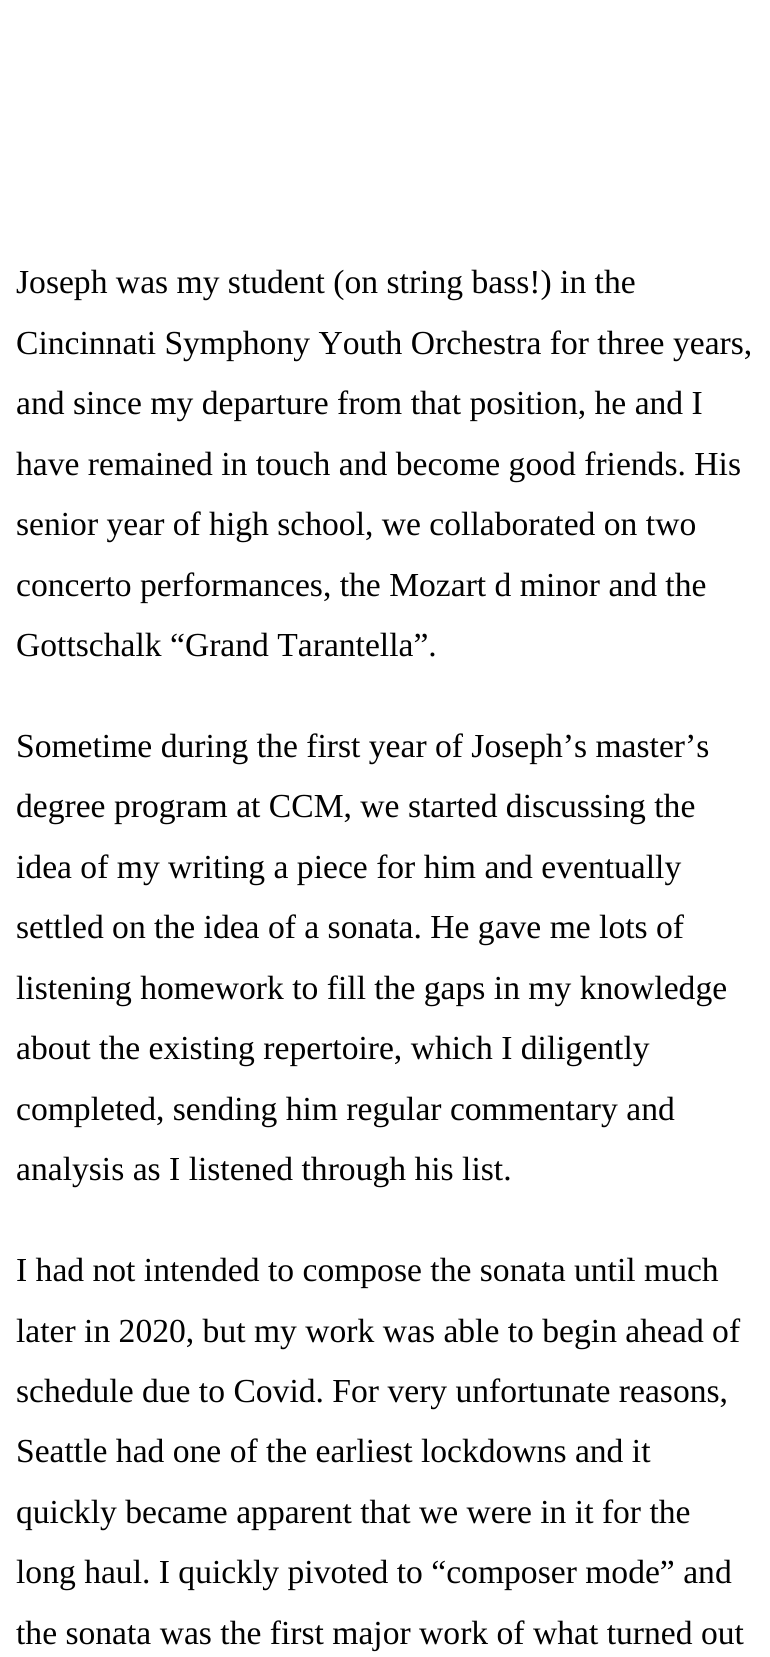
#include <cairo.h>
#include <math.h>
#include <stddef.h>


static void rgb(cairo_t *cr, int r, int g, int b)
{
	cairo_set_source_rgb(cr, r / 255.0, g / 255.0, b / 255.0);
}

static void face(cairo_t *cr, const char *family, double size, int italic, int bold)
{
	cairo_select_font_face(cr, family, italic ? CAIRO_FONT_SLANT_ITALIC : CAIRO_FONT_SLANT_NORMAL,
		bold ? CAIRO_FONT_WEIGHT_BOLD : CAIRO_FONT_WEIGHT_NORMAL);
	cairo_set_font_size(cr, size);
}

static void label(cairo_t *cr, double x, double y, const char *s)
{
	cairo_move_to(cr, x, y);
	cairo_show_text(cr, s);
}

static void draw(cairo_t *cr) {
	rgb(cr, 255, 255, 255);
	cairo_paint(cr);
	face(cr, "Liberation Serif", 33.6, 0, 0);
	rgb(cr, 1, 1, 1);
	label(cr, 16, 293, "Joseph was my student (on string bass!) in the");
	label(cr, 16, 354, "Cincinnati Symphony Youth Orchestra for three years,");
	label(cr, 16, 414, "and since my departure from that position, he and I");
	label(cr, 16, 475, "have remained in touch and become good friends. His");
	label(cr, 16, 535, "senior year of high school, we collaborated on two");
	label(cr, 16, 596, "concerto performances, the Mozart d minor and the");
	label(cr, 16, 656, "Gottschalk “Grand Tarantella”.");
	label(cr, 16, 757, "Sometime during the first year of Joseph’s master’s");
	label(cr, 16, 817, "degree program at CCM, we started discussing the");
	label(cr, 16, 878, "idea of my writing a piece for him and eventually");
	label(cr, 16, 938, "settled on the idea of a sonata. He gave me lots of");
	label(cr, 16, 999, "listening homework to fill the gaps in my knowledge");
	label(cr, 16, 1059, "about the existing repertoire, which I diligently");
	label(cr, 16, 1120, "completed, sending him regular commentary and");
	label(cr, 16, 1180, "analysis as I listened through his list.");
	label(cr, 16, 1281, "I had not intended to compose the sonata until much");
	label(cr, 16, 1342, "later in 2020, but my work was able to begin ahead of");
	label(cr, 16, 1402, "schedule due to Covid. For very unfortunate reasons,");
	label(cr, 16, 1462, "Seattle had one of the earliest lockdowns and it");
	label(cr, 16, 1523, "quickly became apparent that we were in it for the");
	label(cr, 16, 1583, "long haul. I quickly pivoted to “composer mode” and");
	label(cr, 16, 1644, "the sonata was the first major work of what turned out");
}

int main(void) {
	cairo_surface_t *surface = cairo_image_surface_create(CAIRO_FORMAT_RGB24, 770, 1657);
	cairo_t *cr = cairo_create(surface);
	cairo_font_options_t *options = cairo_font_options_create();
	cairo_font_options_set_hint_metrics(options, CAIRO_HINT_METRICS_OFF);
	cairo_font_options_set_hint_style(options, CAIRO_HINT_STYLE_NONE);
	cairo_set_font_options(cr, options);
	cairo_set_miter_limit(cr, 4);
	draw(cr);
	cairo_surface_write_to_png(surface, "render.png");
	cairo_font_options_destroy(options);
	cairo_destroy(cr);
	cairo_surface_destroy(surface);
	return 0;
}
